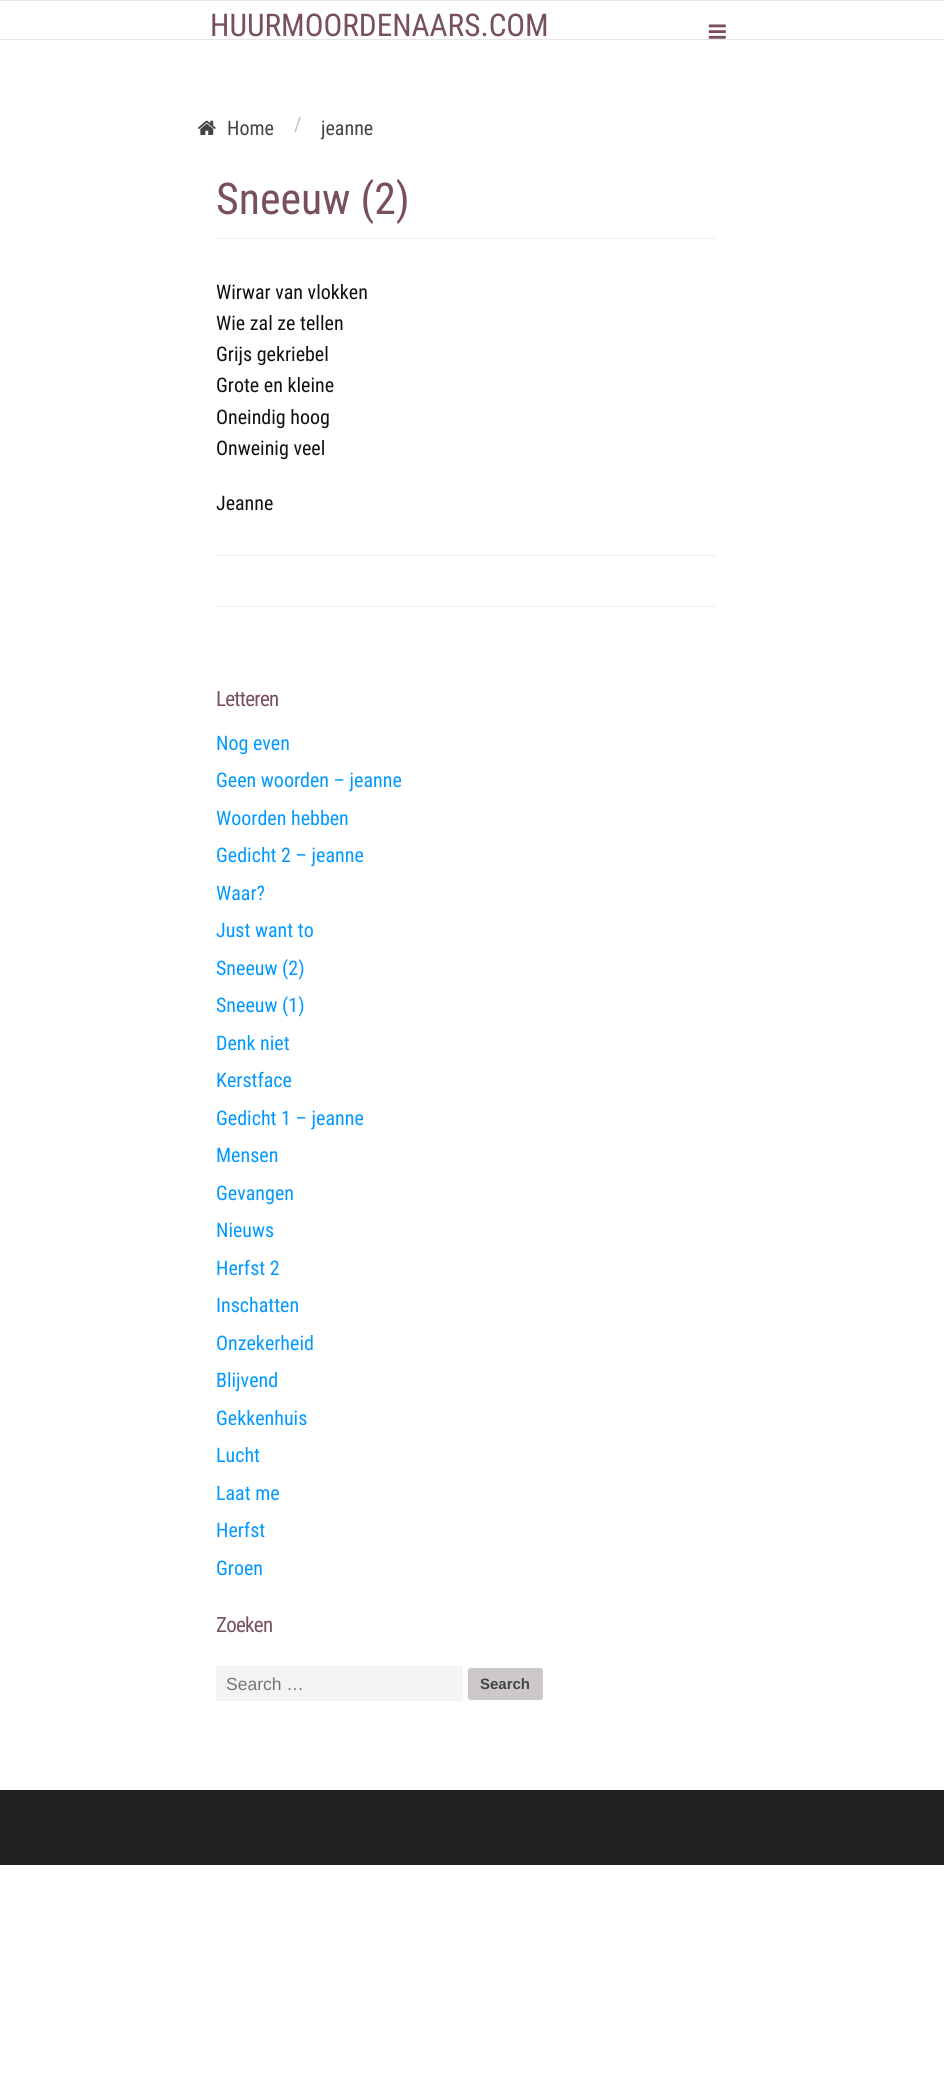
#include <cairo.h>
#include <math.h>
#include <stddef.h>


static void rgb(cairo_t *cr, int r, int g, int b)
{
	cairo_set_source_rgb(cr, r / 255.0, g / 255.0, b / 255.0);
}

static void face(cairo_t *cr, const char *family, double size, int italic, int bold)
{
	cairo_select_font_face(cr, family, italic ? CAIRO_FONT_SLANT_ITALIC : CAIRO_FONT_SLANT_NORMAL,
		bold ? CAIRO_FONT_WEIGHT_BOLD : CAIRO_FONT_WEIGHT_NORMAL);
	cairo_set_font_size(cr, size);
}

static void label(cairo_t *cr, double x, double y, const char *s)
{
	cairo_move_to(cr, x, y);
	cairo_show_text(cr, s);
}

static void tracked(cairo_t *cr, double x, double y, const char *s, double letter, double word)
{
	cairo_move_to(cr, x, y);
	while (*s) {
		char ch[5] = {0};
		int n = 0;
		do ch[n++] = *s++; while ((*s & 0xC0) == 0x80);
		cairo_show_text(cr, ch);
		cairo_rel_move_to(cr, letter + word * (*ch == ' '), 0);
	}
}

static void rect(cairo_t *cr, double x, double y, double w, double h)
{
	cairo_rectangle(cr, x, y, w, h);
	cairo_fill(cr);
}

static void rrect(cairo_t *cr, double x, double y, double w, double h, double r)
{
	cairo_new_sub_path(cr);
	cairo_arc(cr, x + w - r, y + h - r, r, 0, M_PI / 2);
	cairo_arc(cr, x + r, y + h - r, r, M_PI / 2, M_PI);
	cairo_arc(cr, x + r, y + r, r, M_PI, 1.5 * M_PI);
	cairo_arc(cr, x + w - r, y + r, r, 1.5 * M_PI, 2 * M_PI);
	cairo_close_path(cr);
}

static void image(cairo_t *cr, const char *path, double x, double y, double w, double h)
{
	cairo_surface_t *image = cairo_image_surface_create_from_png(path);
	cairo_save(cr);
	cairo_set_source_surface(cr, image, x, y);
	cairo_rectangle(cr, x, y, w, h);
	cairo_fill(cr);
	cairo_restore(cr);
	cairo_surface_destroy(image);
}

static void draw(cairo_t *cr) {
	rgb(cr, 255, 255, 255);
	cairo_paint(cr);
	rgb(cr, 230, 230, 230);
	rect(cr, 0, 0, 944, 1);
	rect(cr, 0, 39, 944, 1);
	face(cr, "Roboto Condensed", 31.25, 0, 0);
	rgb(cr, 120, 80, 90);
	label(cr, 210, 36, "HUURMOORDENAARS.COM");
	image(cr, "image0.png", 708, 24, 18, 15);
	image(cr, "image1.png", 198, 120, 18, 15);
	face(cr, "Roboto Condensed", 20, 0, 0);
	rgb(cr, 68, 68, 68);
	label(cr, 227, 135, "Home");
	rgb(cr, 193, 193, 193);
	label(cr, 294, 131, "/");
	rgb(cr, 68, 68, 68);
	label(cr, 321, 135, "jeanne");
	face(cr, "Roboto Condensed", 43.75, 0, 0);
	rgb(cr, 120, 80, 90);
	label(cr, 216, 214, "Sneeuw (2)");
	rgb(cr, 238, 238, 238);
	rect(cr, 216, 238, 500, 1);
	face(cr, "Roboto Condensed", 20, 0, 0);
	rgb(cr, 17, 17, 17);
	label(cr, 216, 299, "Wirwar van vlokken");
	label(cr, 216, 330, "Wie zal ze tellen");
	label(cr, 216, 361, "Grijs gekriebel");
	label(cr, 216, 392, "Grote en kleine");
	label(cr, 216, 424, "Oneindig hoog");
	label(cr, 216, 455, "Onweinig veel");
	label(cr, 216, 510, "Jeanne");
	rgb(cr, 238, 238, 238);
	rect(cr, 216, 555, 500, 1);
	rect(cr, 216, 606, 500, 1);
	face(cr, "Roboto Condensed", 21, 0, 0);
	rgb(cr, 120, 80, 90);
	tracked(cr, 216, 706, "Letteren", -0.75, 0);
	face(cr, "Roboto Condensed", 20, 0, 0);
	rgb(cr, 2, 153, 255);
	label(cr, 216, 750, "Nog even");
	label(cr, 216, 787, "Geen woorden – jeanne");
	label(cr, 216, 825, "Woorden hebben");
	label(cr, 216, 862, "Gedicht 2 – jeanne");
	label(cr, 216, 900, "Waar?");
	label(cr, 216, 937, "Just want to");
	label(cr, 216, 975, "Sneeuw (2)");
	label(cr, 216, 1012, "Sneeuw (1)");
	label(cr, 216, 1050, "Denk niet");
	label(cr, 216, 1087, "Kerstface");
	label(cr, 216, 1125, "Gedicht 1 – jeanne");
	label(cr, 216, 1162, "Mensen");
	label(cr, 216, 1200, "Gevangen");
	label(cr, 216, 1237, "Nieuws");
	label(cr, 216, 1275, "Herfst 2");
	label(cr, 216, 1312, "Inschatten");
	label(cr, 216, 1350, "Onzekerheid");
	label(cr, 216, 1387, "Blijvend");
	label(cr, 216, 1425, "Gekkenhuis");
	label(cr, 216, 1462, "Lucht");
	label(cr, 216, 1500, "Laat me");
	label(cr, 216, 1537, "Herfst");
	label(cr, 216, 1575, "Groen");
	face(cr, "Roboto Condensed", 21, 0, 0);
	rgb(cr, 120, 80, 90);
	tracked(cr, 216, 1632, "Zoeken", -0.75, 0);
	rgb(cr, 244, 244, 244);
	rect(cr, 216, 1666, 247, 35);
	face(cr, "Liberation Sans", 17.5, 0, 0);
	rgb(cr, 117, 117, 117);
	label(cr, 226, 1690, "Search …");
	rgb(cr, 205, 201, 201);
	rrect(cr, 468, 1668, 75, 32, 2.5);
	cairo_fill(cr);
	face(cr, "Liberation Sans", 15, 0, 1);
	rgb(cr, 68, 68, 68);
	label(cr, 480, 1689, "Search");
	rgb(cr, 34, 34, 34);
	rect(cr, 0, 1790, 944, 75);
}

int main(void) {
	cairo_surface_t *surface = cairo_image_surface_create(CAIRO_FORMAT_RGB24, 944, 2084);
	cairo_t *cr = cairo_create(surface);
	cairo_font_options_t *options = cairo_font_options_create();
	cairo_font_options_set_hint_metrics(options, CAIRO_HINT_METRICS_OFF);
	cairo_font_options_set_hint_style(options, CAIRO_HINT_STYLE_NONE);
	cairo_set_font_options(cr, options);
	cairo_set_miter_limit(cr, 4);
	draw(cr);
	cairo_surface_write_to_png(surface, "render.png");
	cairo_font_options_destroy(options);
	cairo_destroy(cr);
	cairo_surface_destroy(surface);
	return 0;
}
